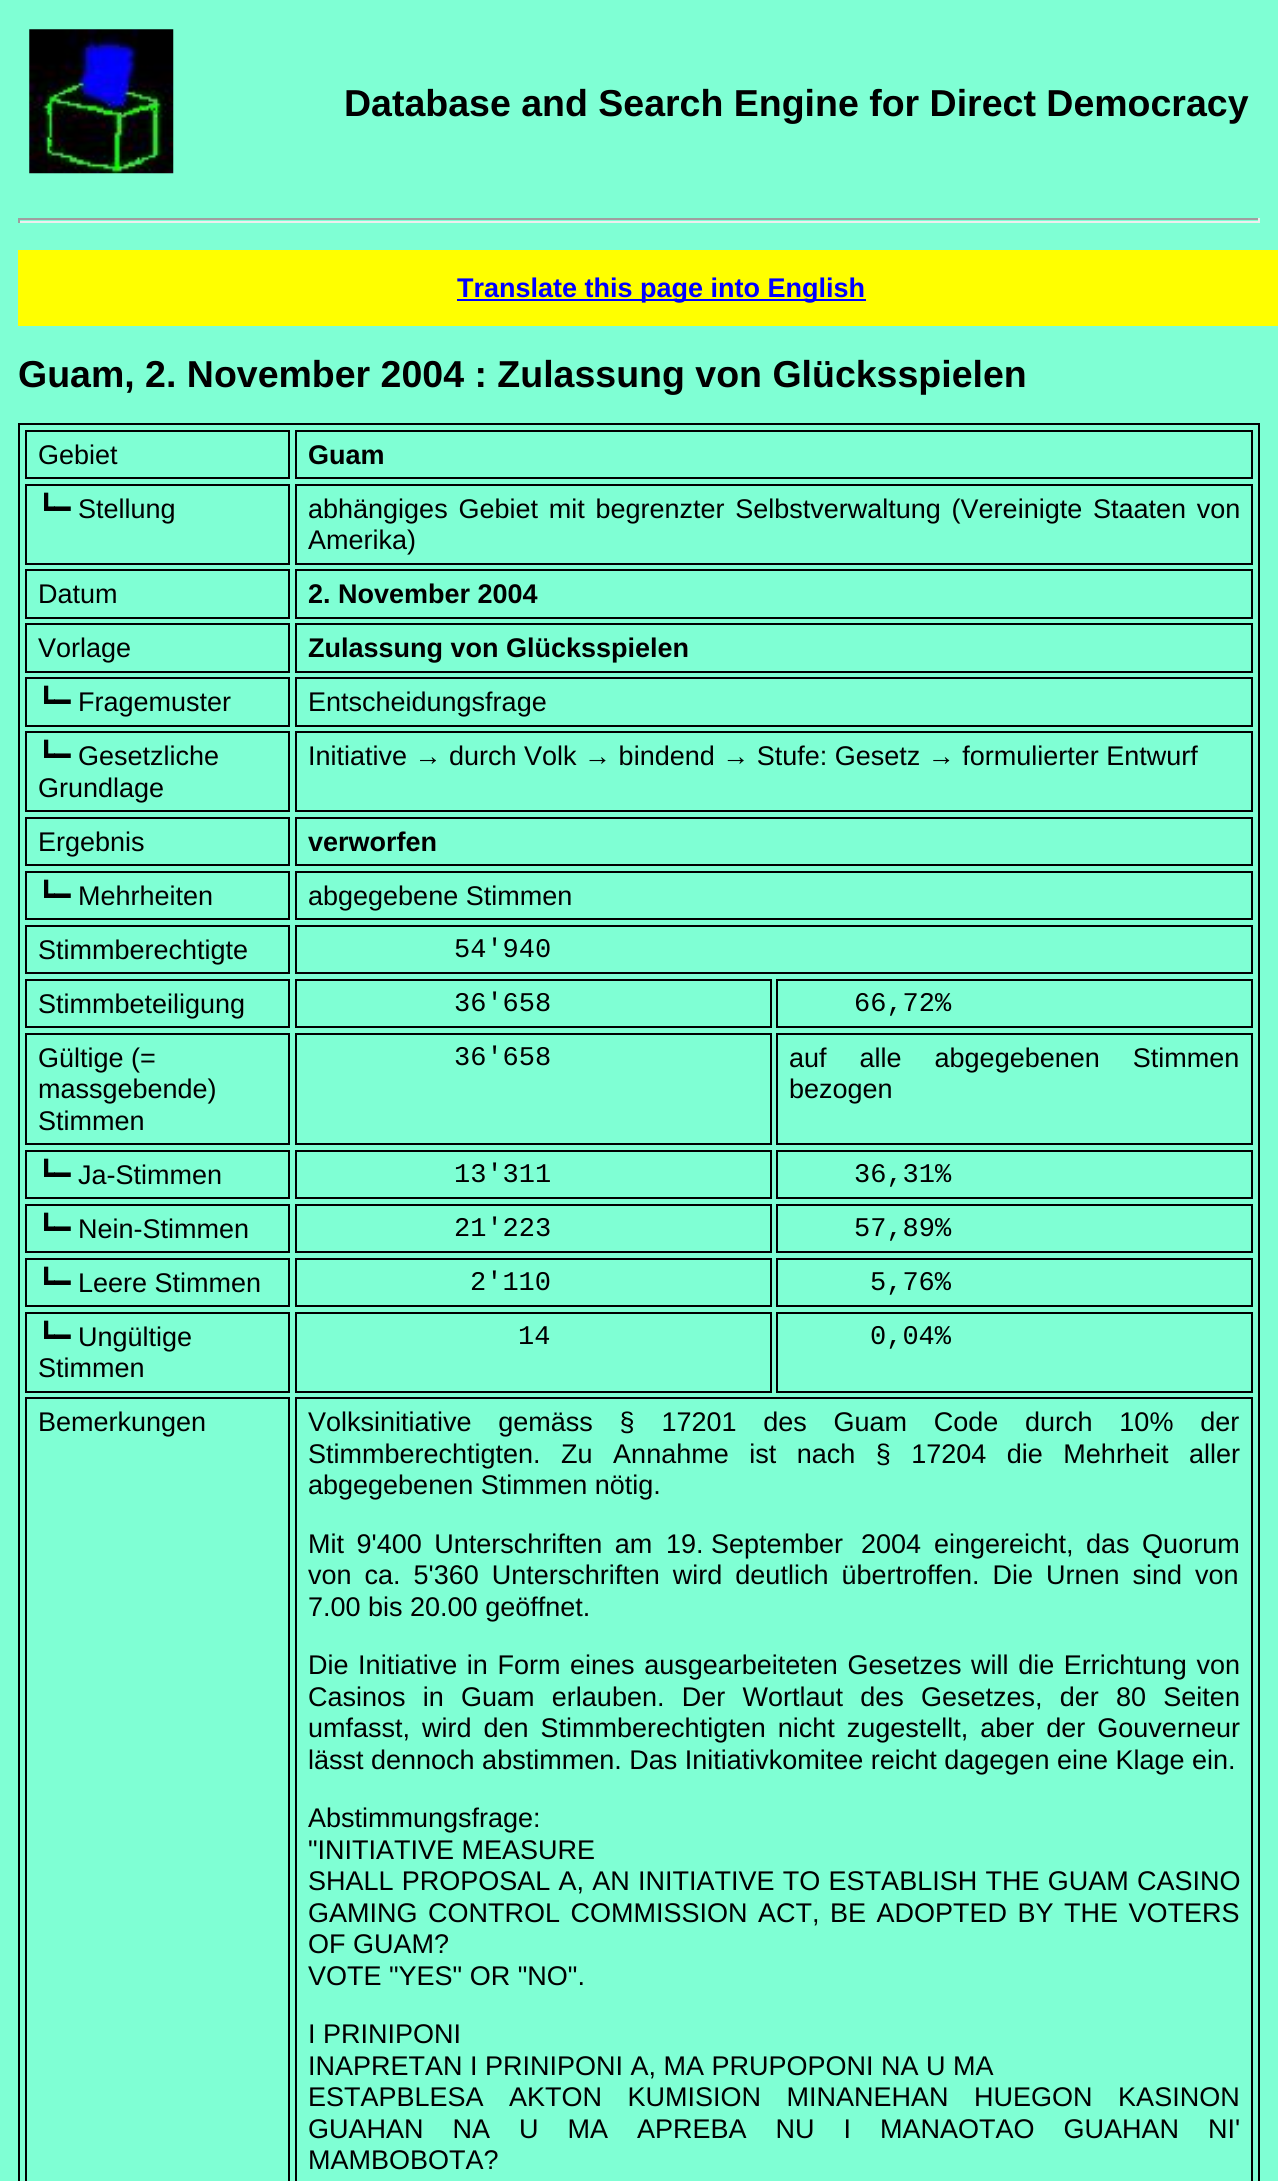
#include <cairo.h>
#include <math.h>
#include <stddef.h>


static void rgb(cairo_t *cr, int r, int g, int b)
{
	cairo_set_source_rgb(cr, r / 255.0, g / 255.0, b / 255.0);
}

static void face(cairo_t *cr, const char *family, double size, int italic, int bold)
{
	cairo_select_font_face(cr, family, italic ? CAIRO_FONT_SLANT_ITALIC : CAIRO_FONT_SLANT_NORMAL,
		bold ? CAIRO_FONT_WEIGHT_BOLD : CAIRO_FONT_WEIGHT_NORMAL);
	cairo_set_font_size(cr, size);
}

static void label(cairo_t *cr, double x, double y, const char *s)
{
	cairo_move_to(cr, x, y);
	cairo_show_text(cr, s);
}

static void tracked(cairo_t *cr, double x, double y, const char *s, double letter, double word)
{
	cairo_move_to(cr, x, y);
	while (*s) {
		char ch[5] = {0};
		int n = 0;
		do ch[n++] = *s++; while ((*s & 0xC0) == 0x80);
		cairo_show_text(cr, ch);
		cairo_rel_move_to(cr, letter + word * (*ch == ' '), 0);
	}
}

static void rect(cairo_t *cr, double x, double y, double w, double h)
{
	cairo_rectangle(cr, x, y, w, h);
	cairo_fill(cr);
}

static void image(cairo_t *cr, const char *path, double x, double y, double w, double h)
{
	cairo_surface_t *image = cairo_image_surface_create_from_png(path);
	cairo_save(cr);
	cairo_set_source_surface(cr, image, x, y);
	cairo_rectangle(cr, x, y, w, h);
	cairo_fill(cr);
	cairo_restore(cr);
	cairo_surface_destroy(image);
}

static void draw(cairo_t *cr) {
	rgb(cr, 127, 255, 212);
	cairo_paint(cr);
	image(cr, "image0.png", 29, 29, 145, 145);
	face(cr, "Liberation Sans", 37.5, 0, 1);
	rgb(cr, 0, 0, 0);
	label(cr, 344, 116, "Database and Search Engine for Direct Democracy");
	rgb(cr, 159, 159, 159);
	rect(cr, 18, 218, 1242, 2);
	rgb(cr, 238, 238, 238);
	rect(cr, 1258, 218, 2, 5);
	rect(cr, 18, 221, 1242, 2);
	rgb(cr, 159, 159, 159);
	rect(cr, 18, 218, 2, 5);
	rgb(cr, 255, 255, 0);
	rect(cr, 18, 250, 1260, 76);
	rgb(cr, 0, 0, 255);
	rect(cr, 457, 299, 409, 2);
	face(cr, "Liberation Sans", 27, 0, 1);
	label(cr, 457, 297, "Translate this page into English");
	face(cr, "Liberation Sans", 37.5, 0, 1);
	rgb(cr, 0, 0, 0);
	label(cr, 18, 387, "Guam, 2. November 2004 : Zulassung von Glücksspielen");
	cairo_rectangle(cr, 19, 424, 1240, 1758);
	cairo_stroke(cr);
	cairo_rectangle(cr, 26, 431, 263, 47);
	cairo_stroke(cr);
	face(cr, "Liberation Sans", 27, 0, 0);
	label(cr, 38, 464, "Gebiet");
	cairo_rectangle(cr, 296, 431, 956, 47);
	cairo_stroke(cr);
	face(cr, "Liberation Sans", 27, 0, 1);
	label(cr, 308, 464, "Guam");
	cairo_rectangle(cr, 26, 485, 263, 79);
	cairo_stroke(cr);
	face(cr, "DejaVu Sans", 27, 0, 0);
	label(cr, 38, 518, "┗━");
	face(cr, "Liberation Sans", 27, 0, 0);
	label(cr, 78, 518, "Stellung");
	cairo_rectangle(cr, 296, 485, 956, 79);
	cairo_stroke(cr);
	tracked(cr, 308, 518, "abhängiges Gebiet mit begrenzter Selbstverwaltung (Vereinigte Staaten von", 0, 3.25);
	label(cr, 308, 549, "Amerika)");
	cairo_rectangle(cr, 26, 570, 263, 48);
	cairo_stroke(cr);
	label(cr, 38, 603, "Datum");
	cairo_rectangle(cr, 296, 570, 956, 48);
	cairo_stroke(cr);
	face(cr, "Liberation Sans", 27, 0, 1);
	label(cr, 308, 603, "2. November 2004");
	cairo_rectangle(cr, 26, 624, 263, 48);
	cairo_stroke(cr);
	face(cr, "Liberation Sans", 27, 0, 0);
	label(cr, 38, 657, "Vorlage");
	cairo_rectangle(cr, 296, 624, 956, 48);
	cairo_stroke(cr);
	face(cr, "Liberation Sans", 27, 0, 1);
	label(cr, 308, 657, "Zulassung von Glücksspielen");
	cairo_rectangle(cr, 26, 678, 263, 48);
	cairo_stroke(cr);
	face(cr, "DejaVu Sans", 27, 0, 0);
	label(cr, 38, 711, "┗━");
	face(cr, "Liberation Sans", 27, 0, 0);
	label(cr, 78, 711, "Fragemuster");
	cairo_rectangle(cr, 296, 678, 956, 48);
	cairo_stroke(cr);
	label(cr, 308, 711, "Entscheidungsfrage");
	cairo_rectangle(cr, 26, 732, 263, 79);
	cairo_stroke(cr);
	face(cr, "DejaVu Sans", 27, 0, 0);
	label(cr, 38, 765, "┗━");
	face(cr, "Liberation Sans", 27, 0, 0);
	label(cr, 78, 765, "Gesetzliche");
	label(cr, 38, 797, "Grundlage");
	cairo_rectangle(cr, 296, 732, 956, 79);
	cairo_stroke(cr);
	label(cr, 308, 765, "Initiative → durch Volk → bindend → Stufe: Gesetz → formulierter Entwurf");
	cairo_rectangle(cr, 26, 818, 263, 47);
	cairo_stroke(cr);
	label(cr, 38, 851, "Ergebnis");
	cairo_rectangle(cr, 296, 818, 956, 47);
	cairo_stroke(cr);
	face(cr, "Liberation Sans", 27, 0, 1);
	label(cr, 308, 851, "verworfen");
	cairo_rectangle(cr, 26, 872, 263, 47);
	cairo_stroke(cr);
	face(cr, "DejaVu Sans", 27, 0, 0);
	label(cr, 38, 905, "┗━");
	face(cr, "Liberation Sans", 27, 0, 0);
	label(cr, 78, 905, "Mehrheiten");
	cairo_rectangle(cr, 296, 872, 956, 47);
	cairo_stroke(cr);
	label(cr, 308, 905, "abgegebene Stimmen");
	cairo_rectangle(cr, 26, 926, 263, 47);
	cairo_stroke(cr);
	label(cr, 38, 959, "Stimmberechtigte");
	cairo_rectangle(cr, 296, 926, 956, 47);
	cairo_stroke(cr);
	face(cr, "Liberation Mono", 27, 0, 0);
	label(cr, 454, 957, "54'940");
	cairo_rectangle(cr, 26, 980, 263, 47);
	cairo_stroke(cr);
	face(cr, "Liberation Sans", 27, 0, 0);
	label(cr, 38, 1013, "Stimmbeteiligung");
	cairo_rectangle(cr, 296, 980, 475, 47);
	cairo_stroke(cr);
	face(cr, "Liberation Mono", 27, 0, 0);
	label(cr, 454, 1011, "36'658");
	cairo_rectangle(cr, 777, 980, 475, 47);
	cairo_stroke(cr);
	label(cr, 854, 1011, "66,72%");
	cairo_rectangle(cr, 26, 1034, 263, 110);
	cairo_stroke(cr);
	face(cr, "Liberation Sans", 27, 0, 0);
	label(cr, 38, 1067, "Gültige (=");
	label(cr, 38, 1098, "massgebende)");
	label(cr, 38, 1130, "Stimmen");
	cairo_rectangle(cr, 296, 1034, 475, 110);
	cairo_stroke(cr);
	face(cr, "Liberation Mono", 27, 0, 0);
	label(cr, 454, 1065, "36'658");
	cairo_rectangle(cr, 777, 1034, 475, 110);
	cairo_stroke(cr);
	face(cr, "Liberation Sans", 27, 0, 0);
	tracked(cr, 789, 1067, "auf alle abgegebenen Stimmen", 0, 25.5);
	label(cr, 789, 1098, "bezogen");
	cairo_rectangle(cr, 26, 1151, 263, 47);
	cairo_stroke(cr);
	face(cr, "DejaVu Sans", 27, 0, 0);
	label(cr, 38, 1184, "┗━");
	face(cr, "Liberation Sans", 27, 0, 0);
	label(cr, 78, 1184, "Ja-Stimmen");
	cairo_rectangle(cr, 296, 1151, 475, 47);
	cairo_stroke(cr);
	face(cr, "Liberation Mono", 27, 0, 0);
	label(cr, 454, 1182, "13'311");
	cairo_rectangle(cr, 777, 1151, 475, 47);
	cairo_stroke(cr);
	label(cr, 854, 1182, "36,31%");
	cairo_rectangle(cr, 26, 1205, 263, 47);
	cairo_stroke(cr);
	face(cr, "DejaVu Sans", 27, 0, 0);
	label(cr, 38, 1238, "┗━");
	face(cr, "Liberation Sans", 27, 0, 0);
	label(cr, 78, 1238, "Nein-Stimmen");
	cairo_rectangle(cr, 296, 1205, 475, 47);
	cairo_stroke(cr);
	face(cr, "Liberation Mono", 27, 0, 0);
	label(cr, 454, 1236, "21'223");
	cairo_rectangle(cr, 777, 1205, 475, 47);
	cairo_stroke(cr);
	label(cr, 854, 1236, "57,89%");
	cairo_rectangle(cr, 26, 1259, 263, 47);
	cairo_stroke(cr);
	face(cr, "DejaVu Sans", 27, 0, 0);
	label(cr, 38, 1292, "┗━");
	face(cr, "Liberation Sans", 27, 0, 0);
	label(cr, 78, 1292, "Leere Stimmen");
	cairo_rectangle(cr, 296, 1259, 475, 47);
	cairo_stroke(cr);
	face(cr, "Liberation Mono", 27, 0, 0);
	label(cr, 470, 1290, "2'110");
	cairo_rectangle(cr, 777, 1259, 475, 47);
	cairo_stroke(cr);
	label(cr, 870, 1290, "5,76%");
	cairo_rectangle(cr, 26, 1313, 263, 79);
	cairo_stroke(cr);
	face(cr, "DejaVu Sans", 27, 0, 0);
	label(cr, 38, 1346, "┗━");
	face(cr, "Liberation Sans", 27, 0, 0);
	label(cr, 78, 1346, "Ungültige");
	label(cr, 38, 1377, "Stimmen");
	cairo_rectangle(cr, 296, 1313, 475, 79);
	cairo_stroke(cr);
	face(cr, "Liberation Mono", 27, 0, 0);
	label(cr, 518, 1344, "14");
	cairo_rectangle(cr, 777, 1313, 475, 79);
	cairo_stroke(cr);
	label(cr, 870, 1344, "0,04%");
	cairo_rectangle(cr, 26, 1398, 263, 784);
	cairo_stroke(cr);
	face(cr, "Liberation Sans", 27, 0, 0);
	label(cr, 38, 1431, "Bemerkungen");
	cairo_rectangle(cr, 296, 1398, 956, 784);
	cairo_stroke(cr);
	tracked(cr, 308, 1431, "Volksinitiative gemäss § 17201 des Guam Code durch 10% der", 0, 19.25);
	tracked(cr, 308, 1463, "Stimmberechtigten. Zu Annahme ist nach § 17204 die Mehrheit aller", 0, 13);
	label(cr, 308, 1494, "abgegebenen Stimmen nötig.");
	tracked(cr, 308, 1553, "Mit 9'400 Unterschriften am", 0, 5);
	label(cr, 666, 1553, "19. September");
	label(cr, 861, 1553, "2004");
	tracked(cr, 934, 1553, "eingereicht, das Quorum", 0, 5);
	tracked(cr, 308, 1584, "von ca. 5'360 Unterschriften wird deutlich übertroffen. Die Urnen sind von", 0, 5.5);
	label(cr, 308, 1616, "7.00 bis 20.00 geöffnet.");
	tracked(cr, 308, 1674, "Die Initiative in Form eines ausgearbeiteten Gesetzes will die Errichtung von", 0, 2.1);
	tracked(cr, 308, 1706, "Casinos in Guam erlauben. Der Wortlaut des Gesetzes, der 80 Seiten", 0, 9.75);
	tracked(cr, 308, 1737, "umfasst, wird den Stimmberechtigten nicht zugestellt, aber der Gouverneur", 0, 4.5);
	label(cr, 308, 1769, "lässt dennoch abstimmen. Das Initiativkomitee reicht dagegen eine Klage ein.");
	label(cr, 308, 1827, "Abstimmungsfrage:");
	label(cr, 308, 1859, "\"INITIATIVE MEASURE");
	tracked(cr, 308, 1890, "SHALL PROPOSAL A, AN INITIATIVE TO ESTABLISH THE GUAM CASINO", 0, 0.75);
	tracked(cr, 308, 1922, "GAMING CONTROL COMMISSION ACT, BE ADOPTED BY THE VOTERS", 0, 3);
	label(cr, 308, 1953, "OF GUAM?");
	label(cr, 308, 1985, "VOTE \"YES\" OR \"NO\".");
	label(cr, 308, 2043, "I PRINIPONI");
	label(cr, 308, 2075, "INAPRETAN I PRINIPONI A, MA PRUPOPONI NA U MA");
	tracked(cr, 308, 2106, "ESTAPBLESA AKTON KUMISION MINANEHAN HUEGON KASINON", 0, 18);
	tracked(cr, 308, 2138, "GUAHAN NA U MA APREBA NU I MANAOTAO GUAHAN NI'", 0, 21.5);
	label(cr, 308, 2169, "MAMBOBOTA?");
}

int main(void) {
	cairo_surface_t *surface = cairo_image_surface_create(CAIRO_FORMAT_RGB24, 1278, 2181);
	cairo_t *cr = cairo_create(surface);
	cairo_font_options_t *options = cairo_font_options_create();
	cairo_font_options_set_hint_metrics(options, CAIRO_HINT_METRICS_OFF);
	cairo_font_options_set_hint_style(options, CAIRO_HINT_STYLE_NONE);
	cairo_set_font_options(cr, options);
	cairo_set_miter_limit(cr, 4);
	draw(cr);
	cairo_surface_write_to_png(surface, "render.png");
	cairo_font_options_destroy(options);
	cairo_destroy(cr);
	cairo_surface_destroy(surface);
	return 0;
}
